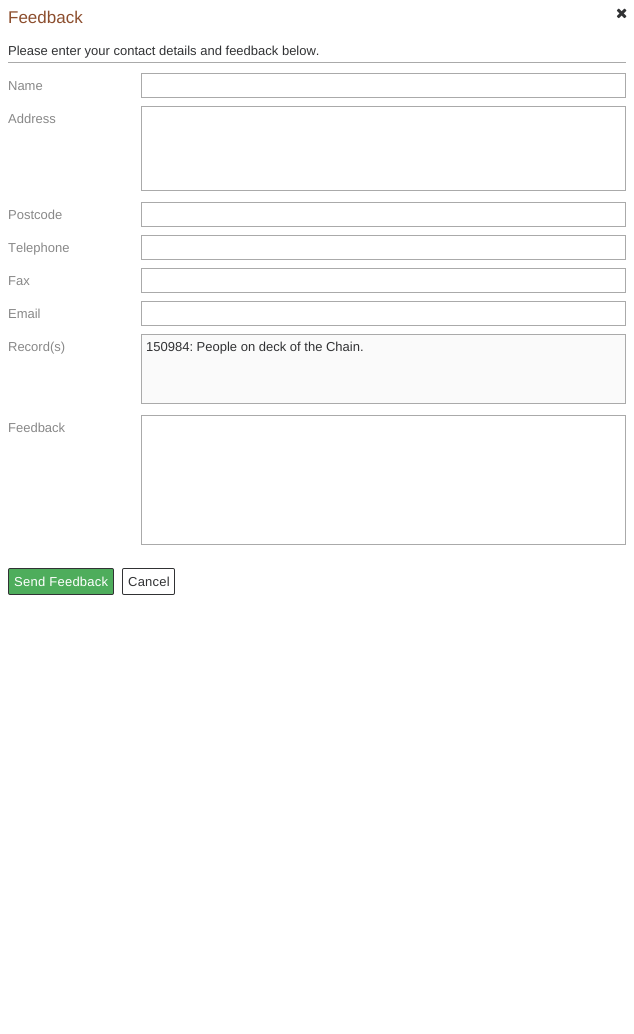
#include <cairo.h>
#include <math.h>
#include <stddef.h>


static void rgb(cairo_t *cr, int r, int g, int b)
{
	cairo_set_source_rgb(cr, r / 255.0, g / 255.0, b / 255.0);
}

static void face(cairo_t *cr, const char *family, double size, int italic, int bold)
{
	cairo_select_font_face(cr, family, italic ? CAIRO_FONT_SLANT_ITALIC : CAIRO_FONT_SLANT_NORMAL,
		bold ? CAIRO_FONT_WEIGHT_BOLD : CAIRO_FONT_WEIGHT_NORMAL);
	cairo_set_font_size(cr, size);
}

static void label(cairo_t *cr, double x, double y, const char *s)
{
	cairo_move_to(cr, x, y);
	cairo_show_text(cr, s);
}

static void tracked(cairo_t *cr, double x, double y, const char *s, double letter, double word)
{
	cairo_move_to(cr, x, y);
	while (*s) {
		char ch[5] = {0};
		int n = 0;
		do ch[n++] = *s++; while ((*s & 0xC0) == 0x80);
		cairo_show_text(cr, ch);
		cairo_rel_move_to(cr, letter + word * (*ch == ' '), 0);
	}
}

static void rect(cairo_t *cr, double x, double y, double w, double h)
{
	cairo_rectangle(cr, x, y, w, h);
	cairo_fill(cr);
}

static void rrect(cairo_t *cr, double x, double y, double w, double h, double r)
{
	cairo_new_sub_path(cr);
	cairo_arc(cr, x + w - r, y + h - r, r, 0, M_PI / 2);
	cairo_arc(cr, x + r, y + h - r, r, M_PI / 2, M_PI);
	cairo_arc(cr, x + r, y + r, r, M_PI, 1.5 * M_PI);
	cairo_arc(cr, x + w - r, y + r, r, 1.5 * M_PI, 2 * M_PI);
	cairo_close_path(cr);
}

static void image(cairo_t *cr, const char *path, double x, double y, double w, double h)
{
	cairo_surface_t *image = cairo_image_surface_create_from_png(path);
	cairo_save(cr);
	cairo_set_source_surface(cr, image, x, y);
	cairo_rectangle(cr, x, y, w, h);
	cairo_fill(cr);
	cairo_restore(cr);
	cairo_surface_destroy(image);
}

static void draw(cairo_t *cr) {
	rgb(cr, 255, 255, 255);
	cairo_paint(cr);
	face(cr, "Liberation Sans", 17, 0, 0);
	rgb(cr, 140, 78, 46);
	label(cr, 8, 23, "Feedback");
	image(cr, "image0.png", 616, 8, 11, 11);
	rgb(cr, 170, 170, 170);
	rect(cr, 8, 62, 618, 1);
	face(cr, "Liberation Sans", 13, 0, 0);
	rgb(cr, 49, 50, 52);
	label(cr, 8, 55, "Please enter your contact details and feedback below.");
	rgb(cr, 136, 136, 136);
	label(cr, 8, 90, "Name");
	cairo_rectangle(cr, 141.5, 73.5, 484, 24);
	rgb(cr, 170, 170, 170);
	cairo_set_line_width(cr, 1);
	cairo_stroke(cr);
	rgb(cr, 136, 136, 136);
	label(cr, 8, 123, "Address");
	cairo_rectangle(cr, 141.5, 106.5, 484, 84);
	rgb(cr, 170, 170, 170);
	cairo_stroke(cr);
	rgb(cr, 136, 136, 136);
	label(cr, 8, 219, "Postcode");
	cairo_rectangle(cr, 141.5, 202.5, 484, 24);
	rgb(cr, 170, 170, 170);
	cairo_stroke(cr);
	rgb(cr, 136, 136, 136);
	label(cr, 8, 252, "Telephone");
	cairo_rectangle(cr, 141.5, 235.5, 484, 24);
	rgb(cr, 170, 170, 170);
	cairo_stroke(cr);
	rgb(cr, 136, 136, 136);
	label(cr, 8, 285, "Fax");
	cairo_rectangle(cr, 141.5, 268.5, 484, 24);
	rgb(cr, 170, 170, 170);
	cairo_stroke(cr);
	rgb(cr, 136, 136, 136);
	label(cr, 8, 318, "Email");
	cairo_rectangle(cr, 141.5, 301.5, 484, 24);
	rgb(cr, 170, 170, 170);
	cairo_stroke(cr);
	rgb(cr, 136, 136, 136);
	label(cr, 8, 351, "Record(s)");
	rgb(cr, 250, 250, 250);
	cairo_rectangle(cr, 141.5, 334.5, 484, 69);
	cairo_fill_preserve(cr);
	rgb(cr, 170, 170, 170);
	cairo_stroke(cr);
	rgb(cr, 49, 50, 52);
	label(cr, 146, 351, "150984: People on deck of the Chain.");
	rgb(cr, 136, 136, 136);
	label(cr, 8, 432, "Feedback");
	cairo_rectangle(cr, 141.5, 415.5, 484, 129);
	rgb(cr, 170, 170, 170);
	cairo_stroke(cr);
	rgb(cr, 78, 173, 92);
	rrect(cr, 8.5, 568.5, 105, 26, 1.5);
	cairo_fill_preserve(cr);
	rgb(cr, 49, 50, 52);
	cairo_stroke(cr);
	rgb(cr, 255, 255, 255);
	tracked(cr, 14, 586, "Send Feedback", 0.25, 0);
	rrect(cr, 122.5, 568.5, 52, 26, 1.5);
	rgb(cr, 49, 50, 52);
	cairo_stroke(cr);
	tracked(cr, 128, 586, "Cancel", 0.25, 0);
}

int main(void) {
	cairo_surface_t *surface = cairo_image_surface_create(CAIRO_FORMAT_RGB24, 634, 1034);
	cairo_t *cr = cairo_create(surface);
	cairo_font_options_t *options = cairo_font_options_create();
	cairo_font_options_set_hint_metrics(options, CAIRO_HINT_METRICS_OFF);
	cairo_font_options_set_hint_style(options, CAIRO_HINT_STYLE_NONE);
	cairo_set_font_options(cr, options);
	cairo_set_miter_limit(cr, 4);
	draw(cr);
	cairo_surface_write_to_png(surface, "render.png");
	cairo_font_options_destroy(options);
	cairo_destroy(cr);
	cairo_surface_destroy(surface);
	return 0;
}
